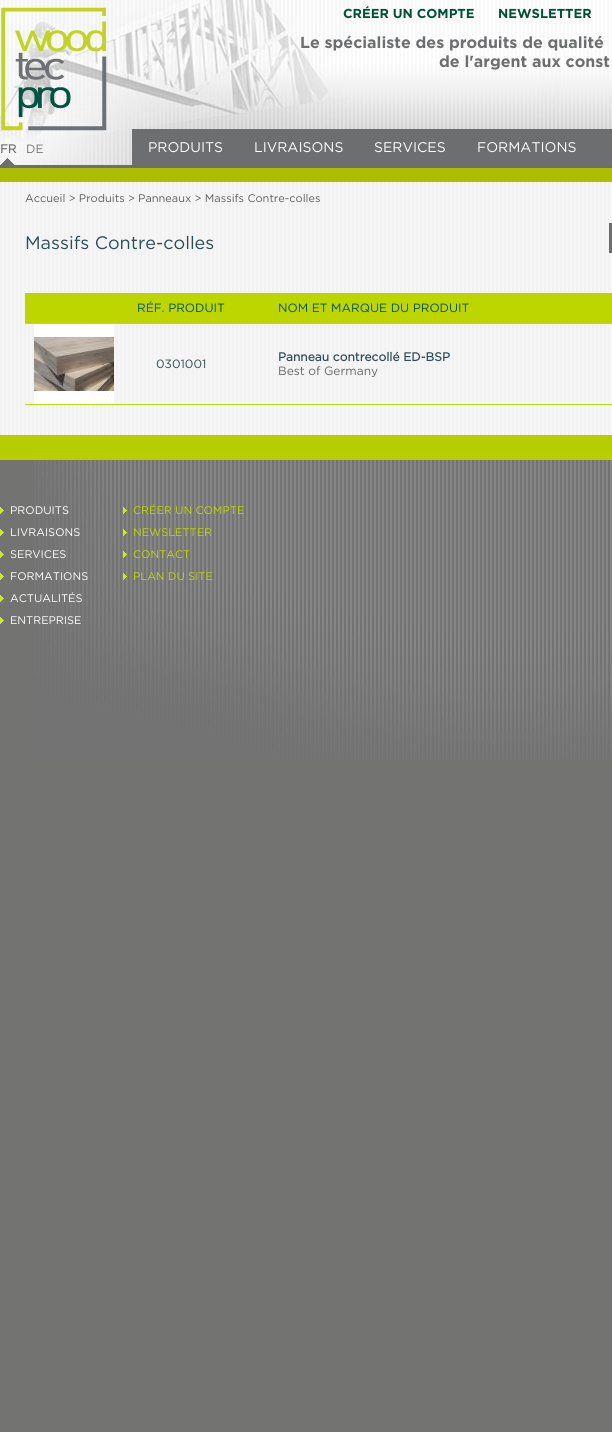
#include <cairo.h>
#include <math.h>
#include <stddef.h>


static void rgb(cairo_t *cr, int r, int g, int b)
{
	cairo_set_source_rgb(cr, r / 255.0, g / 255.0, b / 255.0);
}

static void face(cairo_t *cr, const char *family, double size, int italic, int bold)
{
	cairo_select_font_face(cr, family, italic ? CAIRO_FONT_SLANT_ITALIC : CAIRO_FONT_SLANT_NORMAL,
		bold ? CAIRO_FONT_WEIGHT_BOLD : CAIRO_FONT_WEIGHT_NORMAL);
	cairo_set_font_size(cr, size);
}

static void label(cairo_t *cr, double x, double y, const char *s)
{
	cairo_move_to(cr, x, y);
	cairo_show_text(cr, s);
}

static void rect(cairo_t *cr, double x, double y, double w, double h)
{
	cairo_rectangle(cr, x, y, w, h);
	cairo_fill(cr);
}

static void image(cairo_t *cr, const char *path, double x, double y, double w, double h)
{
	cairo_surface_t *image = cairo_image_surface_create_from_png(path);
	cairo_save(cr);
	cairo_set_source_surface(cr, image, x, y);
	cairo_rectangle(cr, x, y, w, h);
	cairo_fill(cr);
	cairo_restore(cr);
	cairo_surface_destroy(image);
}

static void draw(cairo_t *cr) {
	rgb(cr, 115, 115, 114);
	cairo_paint(cr);
	image(cr, "image0.png", 0, 0, 612, 168);
	image(cr, "image1.png", 0, 168, 612, 292);
	image(cr, "image2.png", 1, 7, 106, 124);
	image(cr, "image3.png", 1, 158, 13, 7);
	face(cr, "Gotham", 12, 0, 1);
	rgb(cr, 115, 115, 114);
	label(cr, 0, 153, "FR");
	face(cr, "Gotham", 12, 0, 0);
	label(cr, 26, 153, "DE");
	face(cr, "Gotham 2", 13, 0, 1);
	rgb(cr, 0, 80, 56);
	label(cr, 343, 18, "CRÉER UN COMPTE");
	label(cr, 498, 18, "NEWSLETTER");
	face(cr, "Gotham 2", 16, 0, 1);
	rgb(cr, 109, 110, 112);
	label(cr, 300, 48, "Le spécialiste des produits de qualité");
	label(cr, 439, 67, "de l'argent aux const");
	rect(cr, 132, 129, 480, 37);
	face(cr, "Gotham", 14, 0, 0);
	rgb(cr, 255, 255, 255);
	label(cr, 148, 152, "PRODUITS");
	label(cr, 254, 152, "LIVRAISONS");
	label(cr, 374, 152, "SERVICES");
	label(cr, 477, 152, "FORMATIONS");
	image(cr, "image4.png", 0, 182, 612, 253);
	face(cr, "Gotham", 11, 0, 0);
	rgb(cr, 94, 94, 94);
	label(cr, 25, 202, "Accueil > Produits > Panneaux > Massifs Contre-colles");
	face(cr, "Gotham", 18, 0, 0);
	rgb(cr, 45, 76, 89);
	label(cr, 25, 249, "Massifs Contre-colles");
	rgb(cr, 109, 110, 112);
	rect(cr, 609, 223, 3, 30);
	rgb(cr, 190, 214, 0);
	rect(cr, 25, 293, 587, 30);
	face(cr, "Gotham", 12, 0, 0);
	rgb(cr, 0, 80, 56);
	label(cr, 137, 312, "RÉF. PRODUIT");
	label(cr, 278, 312, "NOM ET MARQUE DU PRODUIT");
	rgb(cr, 184, 224, 17);
	rect(cr, 25, 323, 587, 1);
	image(cr, "image5.png", 34, 324, 80, 80);
	rgb(cr, 45, 76, 89);
	label(cr, 156, 368, "0301001");
	face(cr, "Gotham", 12, 0, 1);
	label(cr, 278, 361, "Panneau contrecollé ED-BSP");
	face(cr, "Gotham", 12, 0, 0);
	rgb(cr, 102, 102, 102);
	label(cr, 278, 375, "Best of Germany");
	rgb(cr, 184, 224, 17);
	rect(cr, 25, 404, 587, 1);
	image(cr, "image6.png", 34, 460, 578, 300);
	image(cr, "image7.png", 0, 507, 4, 7);
	face(cr, "Gotham", 11, 0, 0);
	rgb(cr, 255, 255, 255);
	label(cr, 10, 514, "PRODUITS");
	image(cr, "image7.png", 0, 529, 4, 7);
	label(cr, 10, 536, "LIVRAISONS");
	image(cr, "image7.png", 0, 551, 4, 7);
	label(cr, 10, 558, "SERVICES");
	image(cr, "image7.png", 0, 573, 4, 7);
	label(cr, 10, 580, "FORMATIONS");
	image(cr, "image7.png", 0, 595, 4, 7);
	label(cr, 10, 602, "ACTUALITÉS");
	image(cr, "image7.png", 0, 617, 4, 7);
	label(cr, 10, 624, "ENTREPRISE");
	image(cr, "image8.png", 123, 507, 4, 7);
	rgb(cr, 190, 214, 0);
	label(cr, 133, 514, "CRÉER UN COMPTE");
	image(cr, "image9.png", 123, 529, 4, 7);
	label(cr, 133, 536, "NEWSLETTER");
	image(cr, "image10.png", 123, 551, 4, 7);
	label(cr, 133, 558, "CONTACT");
	image(cr, "image11.png", 123, 573, 4, 7);
	label(cr, 133, 580, "PLAN DU SITE");
}

int main(void) {
	cairo_surface_t *surface = cairo_image_surface_create(CAIRO_FORMAT_RGB24, 612, 1432);
	cairo_t *cr = cairo_create(surface);
	cairo_font_options_t *options = cairo_font_options_create();
	cairo_font_options_set_hint_metrics(options, CAIRO_HINT_METRICS_OFF);
	cairo_font_options_set_hint_style(options, CAIRO_HINT_STYLE_NONE);
	cairo_set_font_options(cr, options);
	cairo_set_miter_limit(cr, 4);
	draw(cr);
	cairo_surface_write_to_png(surface, "render.png");
	cairo_font_options_destroy(options);
	cairo_destroy(cr);
	cairo_surface_destroy(surface);
	return 0;
}
